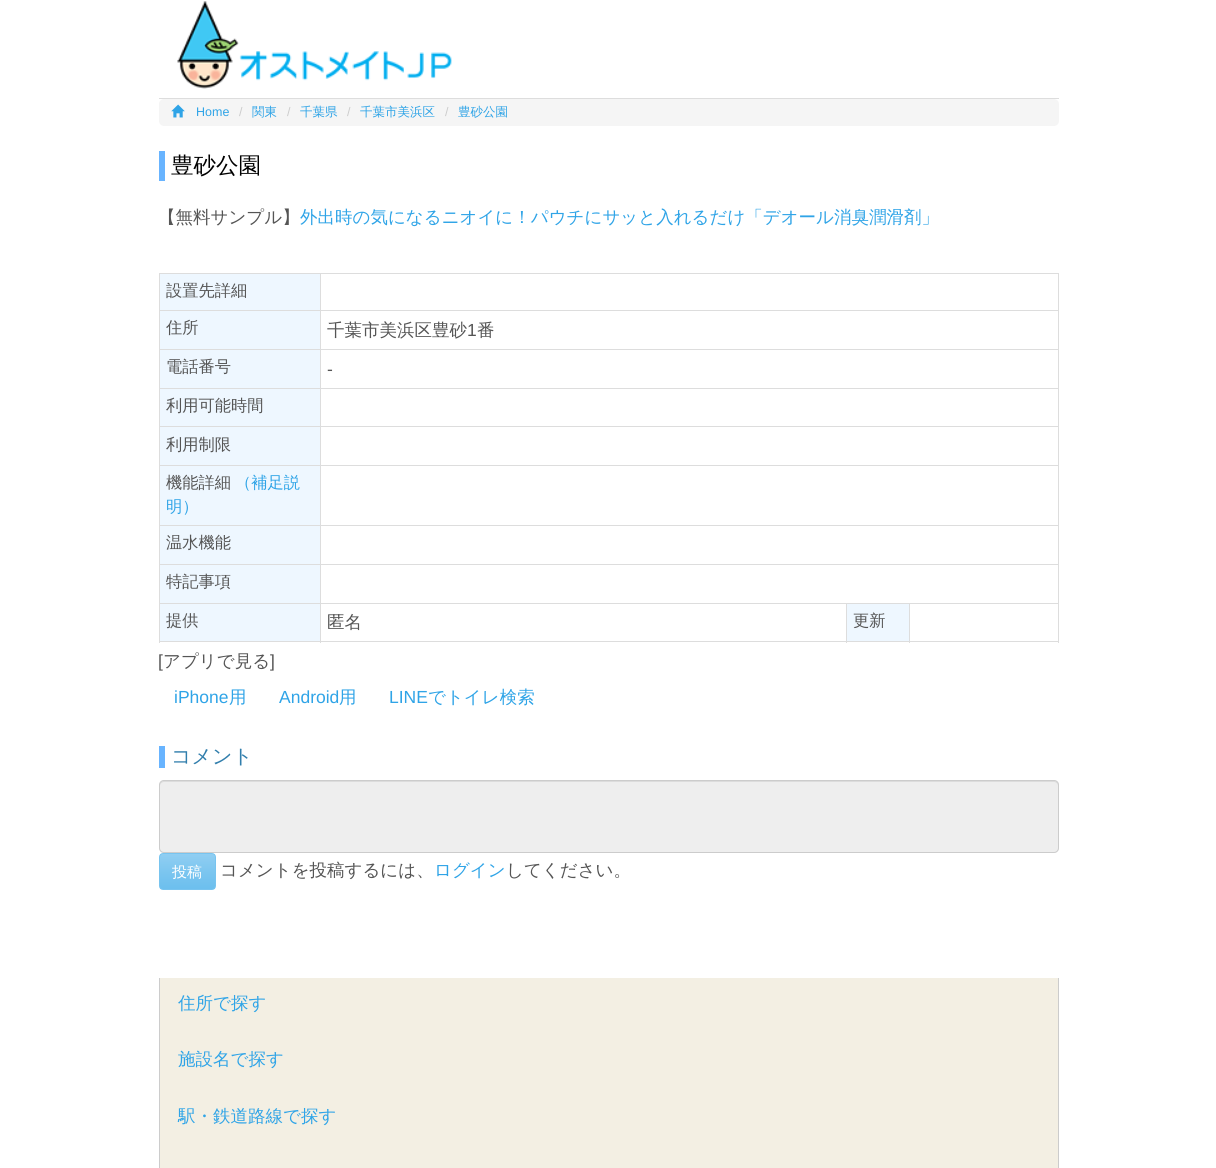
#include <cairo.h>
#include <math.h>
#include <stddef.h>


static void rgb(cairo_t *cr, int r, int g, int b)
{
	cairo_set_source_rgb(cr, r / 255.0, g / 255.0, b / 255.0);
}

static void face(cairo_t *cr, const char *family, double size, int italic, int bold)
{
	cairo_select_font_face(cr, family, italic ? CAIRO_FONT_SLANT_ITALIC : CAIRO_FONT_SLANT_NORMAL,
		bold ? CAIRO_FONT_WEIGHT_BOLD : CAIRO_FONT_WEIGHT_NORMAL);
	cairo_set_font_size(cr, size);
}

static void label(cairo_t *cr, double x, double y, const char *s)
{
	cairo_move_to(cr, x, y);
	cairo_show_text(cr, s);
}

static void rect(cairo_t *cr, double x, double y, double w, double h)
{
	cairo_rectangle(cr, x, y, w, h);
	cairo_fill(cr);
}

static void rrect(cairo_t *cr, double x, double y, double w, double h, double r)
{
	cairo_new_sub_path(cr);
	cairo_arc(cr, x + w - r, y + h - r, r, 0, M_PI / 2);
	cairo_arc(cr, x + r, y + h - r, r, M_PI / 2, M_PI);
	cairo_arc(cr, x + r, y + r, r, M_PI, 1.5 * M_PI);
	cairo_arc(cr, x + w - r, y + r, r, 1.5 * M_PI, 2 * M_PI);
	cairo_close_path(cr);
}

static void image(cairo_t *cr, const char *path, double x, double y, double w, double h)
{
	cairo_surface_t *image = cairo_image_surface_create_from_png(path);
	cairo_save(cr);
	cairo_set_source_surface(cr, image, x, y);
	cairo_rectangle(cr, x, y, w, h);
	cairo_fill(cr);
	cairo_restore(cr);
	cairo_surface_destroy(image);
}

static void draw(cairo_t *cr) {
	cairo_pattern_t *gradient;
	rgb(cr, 255, 255, 255);
	cairo_paint(cr);
	rgb(cr, 221, 221, 221);
	rect(cr, 159, 98, 900, 1);
	image(cr, "image0.png", 177, 1, 275, 88);
	rgb(cr, 245, 245, 245);
	rrect(cr, 159, 99, 900, 27, 5);
	cairo_fill(cr);
	image(cr, "image1.png", 171, 104, 14, 14);
	face(cr, "Liberation Sans", 12.5, 0, 0);
	rgb(cr, 47, 164, 231);
	label(cr, 196, 116, "Home");
	rgb(cr, 204, 204, 204);
	label(cr, 239, 116, "/");
	face(cr, "WenQuanYi Zen Hei Medium", 12.5, 0, 0);
	rgb(cr, 47, 164, 231);
	label(cr, 252, 116, "関東");
	face(cr, "Liberation Sans", 12.5, 0, 0);
	rgb(cr, 204, 204, 204);
	label(cr, 287, 116, "/");
	face(cr, "WenQuanYi Zen Hei Medium", 12.5, 0, 0);
	rgb(cr, 47, 164, 231);
	label(cr, 300, 116, "千葉県");
	face(cr, "Liberation Sans", 12.5, 0, 0);
	rgb(cr, 204, 204, 204);
	label(cr, 347, 116, "/");
	face(cr, "WenQuanYi Zen Hei Medium", 12.5, 0, 0);
	rgb(cr, 47, 164, 231);
	label(cr, 360, 116, "千葉市美浜区");
	face(cr, "Liberation Sans", 12.5, 0, 0);
	rgb(cr, 204, 204, 204);
	label(cr, 445, 116, "/");
	face(cr, "WenQuanYi Zen Hei Medium", 12.5, 0, 0);
	rgb(cr, 47, 164, 231);
	label(cr, 458, 116, "豊砂公園");
	rgb(cr, 104, 180, 255);
	rect(cr, 159, 151, 6, 30);
	face(cr, "WenQuanYi Zen Hei Medium", 22.5, 0, 0);
	rgb(cr, 0, 0, 0);
	label(cr, 171, 173, "豊砂公園");
	face(cr, "WenQuanYi Zen Hei Medium", 17.5, 0, 0);
	rgb(cr, 85, 85, 85);
	label(cr, 158, 223, "【無料サンプル】");
	rgb(cr, 47, 164, 231);
	label(cr, 300, 223, "外出時の気になるニオイに！パウチにサッと入れるだけ「デオール消臭潤滑剤」");
	rgb(cr, 221, 221, 221);
	rect(cr, 159, 273, 900, 1);
	rect(cr, 1058, 273, 1, 370);
	rect(cr, 159, 641, 900, 1);
	rect(cr, 159, 273, 1, 370);
	rgb(cr, 238, 247, 255);
	rect(cr, 160, 274, 160, 36);
	face(cr, "WenQuanYi Zen Hei Medium", 16.25, 0, 0);
	rgb(cr, 85, 85, 85);
	label(cr, 166, 296, "設置先詳細");
	rgb(cr, 221, 221, 221);
	rect(cr, 320, 310, 739, 1);
	rect(cr, 320, 349, 739, 1);
	rect(cr, 320, 388, 739, 1);
	rect(cr, 320, 426, 739, 1);
	rect(cr, 320, 465, 739, 1);
	rect(cr, 320, 525, 739, 1);
	rect(cr, 320, 564, 739, 1);
	rect(cr, 909, 603, 150, 1);
	rect(cr, 909, 603, 1, 40);
	rect(cr, 846, 603, 64, 1);
	rect(cr, 846, 603, 1, 40);
	rect(cr, 320, 603, 528, 1);
	rect(cr, 320, 603, 1, 40);
	rect(cr, 159, 603, 162, 1);
	rect(cr, 320, 564, 1, 40);
	rect(cr, 159, 564, 162, 1);
	rect(cr, 320, 525, 1, 40);
	rect(cr, 159, 525, 162, 1);
	rect(cr, 320, 465, 1, 61);
	rect(cr, 159, 465, 162, 1);
	rect(cr, 320, 426, 1, 40);
	rect(cr, 159, 426, 162, 1);
	rect(cr, 320, 388, 1, 40);
	rect(cr, 159, 388, 162, 1);
	rect(cr, 320, 349, 1, 40);
	rect(cr, 159, 349, 162, 1);
	rect(cr, 320, 310, 1, 40);
	rect(cr, 159, 310, 162, 1);
	rect(cr, 320, 273, 1, 38);
	rgb(cr, 238, 247, 255);
	rect(cr, 160, 311, 160, 38);
	rgb(cr, 85, 85, 85);
	label(cr, 166, 333, "住所");
	face(cr, "WenQuanYi Zen Hei Medium", 17.5, 0, 0);
	label(cr, 327, 336, "千葉市美浜区豊砂");
	face(cr, "Liberation Sans", 17.5, 0, 0);
	label(cr, 467, 336, "1");
	face(cr, "WenQuanYi Zen Hei Medium", 17.5, 0, 0);
	label(cr, 477, 336, "番");
	rgb(cr, 238, 247, 255);
	rect(cr, 160, 350, 160, 38);
	face(cr, "WenQuanYi Zen Hei Medium", 16.25, 0, 0);
	rgb(cr, 85, 85, 85);
	label(cr, 166, 372, "電話番号");
	face(cr, "Liberation Sans", 17.5, 0, 0);
	label(cr, 327, 375, "-");
	rgb(cr, 238, 247, 255);
	rect(cr, 160, 389, 160, 37);
	face(cr, "WenQuanYi Zen Hei Medium", 16.25, 0, 0);
	rgb(cr, 85, 85, 85);
	label(cr, 166, 411, "利用可能時間");
	rgb(cr, 238, 247, 255);
	rect(cr, 160, 427, 160, 38);
	rgb(cr, 85, 85, 85);
	label(cr, 166, 450, "利用制限");
	rgb(cr, 238, 247, 255);
	rect(cr, 160, 466, 160, 59);
	rgb(cr, 85, 85, 85);
	label(cr, 166, 488, "機能詳細");
	rgb(cr, 47, 164, 231);
	label(cr, 235, 488, "（補足説");
	label(cr, 166, 512, "明）");
	rgb(cr, 238, 247, 255);
	rect(cr, 160, 526, 160, 38);
	rgb(cr, 85, 85, 85);
	label(cr, 166, 548, "温水機能");
	rgb(cr, 238, 247, 255);
	rect(cr, 160, 565, 160, 38);
	rgb(cr, 85, 85, 85);
	label(cr, 166, 587, "特記事項");
	rgb(cr, 238, 247, 255);
	rect(cr, 160, 604, 160, 37);
	rgb(cr, 85, 85, 85);
	label(cr, 166, 626, "提供");
	face(cr, "WenQuanYi Zen Hei Medium", 17.5, 0, 0);
	label(cr, 327, 628, "匿名");
	rgb(cr, 238, 247, 255);
	rect(cr, 847, 604, 62, 37);
	face(cr, "WenQuanYi Zen Hei Medium", 16.25, 0, 0);
	rgb(cr, 85, 85, 85);
	label(cr, 853, 626, "更新");
	face(cr, "Liberation Sans", 17.5, 0, 0);
	label(cr, 158, 667, "[");
	face(cr, "WenQuanYi Zen Hei Medium", 17.5, 0, 0);
	label(cr, 163, 667, "アプリで見る");
	face(cr, "Liberation Sans", 17.5, 0, 0);
	label(cr, 270, 667, "]");
	rgb(cr, 47, 164, 231);
	label(cr, 174, 703, "iPhone");
	face(cr, "WenQuanYi Zen Hei Medium", 17.5, 0, 0);
	label(cr, 229, 703, "用");
	face(cr, "Liberation Sans", 17.5, 0, 0);
	label(cr, 279, 703, "Android");
	face(cr, "WenQuanYi Zen Hei Medium", 17.5, 0, 0);
	label(cr, 339, 703, "用");
	face(cr, "Liberation Sans", 17.5, 0, 0);
	label(cr, 389, 703, "LINE");
	face(cr, "WenQuanYi Zen Hei Medium", 17.5, 0, 0);
	label(cr, 428, 703, "でトイレ検索");
	rgb(cr, 104, 180, 255);
	rect(cr, 159, 746, 6, 22);
	face(cr, "WenQuanYi Zen Hei Medium", 20, 0, 0);
	rgb(cr, 49, 126, 172);
	label(cr, 171, 763, "コメント");
	rgb(cr, 238, 238, 238);
	rrect(cr, 159, 780, 900, 73, 5);
	cairo_fill(cr);
	rgb(cr, 220, 220, 220);
	cairo_new_path(cr);
	cairo_move_to(cr, 164, 782);
	cairo_line_to(cr, 1054, 782);
	cairo_curve_to(cr, 1056, 782, 1058, 784, 1058, 786);
	cairo_curve_to(cr, 1058, 783, 1057, 781, 1054, 781);
	cairo_line_to(cr, 164, 781);
	cairo_curve_to(cr, 161, 781, 160, 783, 160, 786);
	cairo_curve_to(cr, 160, 784, 162, 782, 164, 782);
	cairo_close_path(cr);
	cairo_fill(cr);
	rrect(cr, 159.5, 780.5, 899, 72, 4.5);
	rgb(cr, 204, 204, 204);
	cairo_set_line_width(cr, 1);
	cairo_stroke(cr);
	cairo_save(cr);
	rrect(cr, 159, 853, 57, 37, 4);
	cairo_clip(cr);
	gradient = cairo_pattern_create_linear(188, 854, 188, 889);
	cairo_pattern_add_color_stop_rgba(gradient, 0, 0.565, 0.808, 0.949, 1);
	cairo_pattern_add_color_stop_rgba(gradient, 0.6, 0.471, 0.769, 0.937, 1);
	cairo_pattern_add_color_stop_rgba(gradient, 1, 0.424, 0.749, 0.933, 1);
	cairo_set_source(cr, gradient);
	cairo_pattern_destroy(gradient);
	rect(cr, 160, 854, 55, 35);
	cairo_restore(cr);
	rrect(cr, 159.5, 853.5, 56, 36, 3.5);
	rgb(cr, 120, 196, 239);
	cairo_stroke(cr);
	face(cr, "WenQuanYi Zen Hei Medium", 15, 0, 0);
	rgb(cr, 255, 255, 255);
	label(cr, 172, 877, "投稿");
	face(cr, "WenQuanYi Zen Hei Medium", 17.5, 0, 0);
	rgb(cr, 85, 85, 85);
	label(cr, 220, 876, "コメントを投稿するには、");
	rgb(cr, 47, 164, 231);
	label(cr, 434, 876, "ログイン");
	rgb(cr, 85, 85, 85);
	label(cr, 506, 876, "してください。");
	rgb(cr, 243, 239, 227);
	rect(cr, 160, 978, 898, 190);
	rgb(cr, 204, 204, 204);
	rect(cr, 1058, 978, 1, 190);
	rect(cr, 159, 978, 1, 190);
	rgb(cr, 47, 164, 231);
	label(cr, 178, 1009, "住所で探す");
	label(cr, 178, 1065, "施設名で探す");
	label(cr, 178, 1122, "駅・鉄道路線で探す");
}

int main(void) {
	cairo_surface_t *surface = cairo_image_surface_create(CAIRO_FORMAT_RGB24, 1216, 1168);
	cairo_t *cr = cairo_create(surface);
	cairo_font_options_t *options = cairo_font_options_create();
	cairo_font_options_set_hint_metrics(options, CAIRO_HINT_METRICS_OFF);
	cairo_font_options_set_hint_style(options, CAIRO_HINT_STYLE_NONE);
	cairo_set_font_options(cr, options);
	cairo_set_miter_limit(cr, 4);
	draw(cr);
	cairo_surface_write_to_png(surface, "render.png");
	cairo_font_options_destroy(options);
	cairo_destroy(cr);
	cairo_surface_destroy(surface);
	return 0;
}
